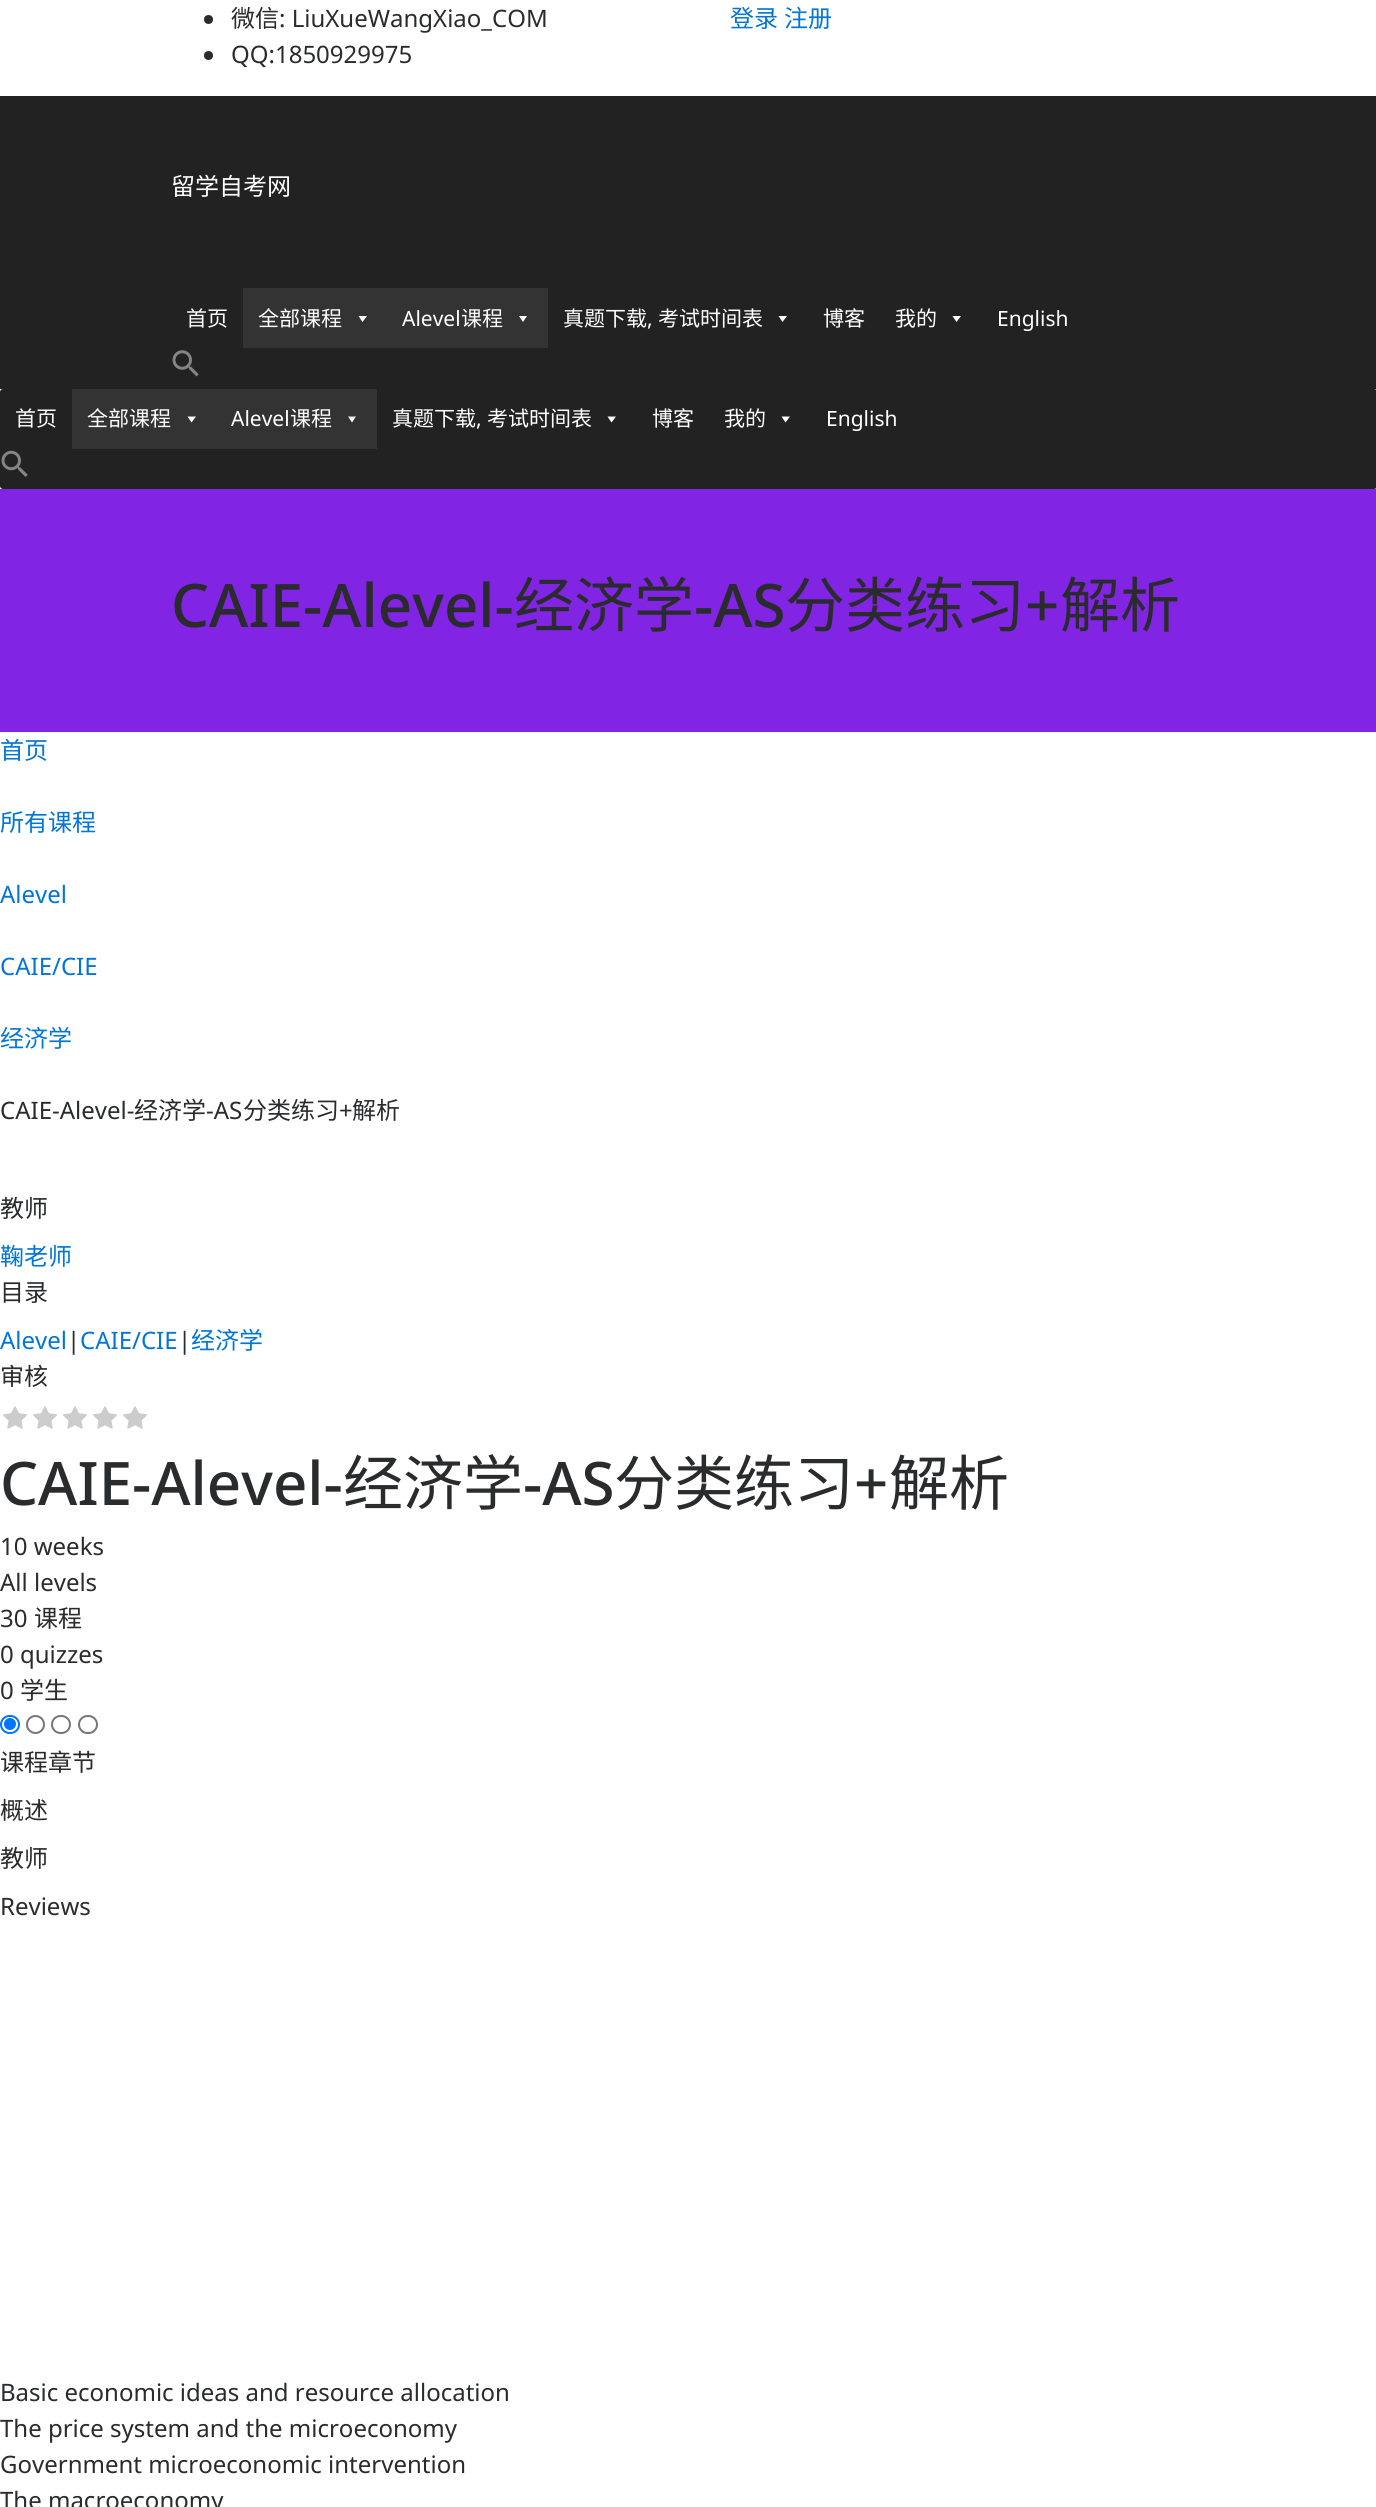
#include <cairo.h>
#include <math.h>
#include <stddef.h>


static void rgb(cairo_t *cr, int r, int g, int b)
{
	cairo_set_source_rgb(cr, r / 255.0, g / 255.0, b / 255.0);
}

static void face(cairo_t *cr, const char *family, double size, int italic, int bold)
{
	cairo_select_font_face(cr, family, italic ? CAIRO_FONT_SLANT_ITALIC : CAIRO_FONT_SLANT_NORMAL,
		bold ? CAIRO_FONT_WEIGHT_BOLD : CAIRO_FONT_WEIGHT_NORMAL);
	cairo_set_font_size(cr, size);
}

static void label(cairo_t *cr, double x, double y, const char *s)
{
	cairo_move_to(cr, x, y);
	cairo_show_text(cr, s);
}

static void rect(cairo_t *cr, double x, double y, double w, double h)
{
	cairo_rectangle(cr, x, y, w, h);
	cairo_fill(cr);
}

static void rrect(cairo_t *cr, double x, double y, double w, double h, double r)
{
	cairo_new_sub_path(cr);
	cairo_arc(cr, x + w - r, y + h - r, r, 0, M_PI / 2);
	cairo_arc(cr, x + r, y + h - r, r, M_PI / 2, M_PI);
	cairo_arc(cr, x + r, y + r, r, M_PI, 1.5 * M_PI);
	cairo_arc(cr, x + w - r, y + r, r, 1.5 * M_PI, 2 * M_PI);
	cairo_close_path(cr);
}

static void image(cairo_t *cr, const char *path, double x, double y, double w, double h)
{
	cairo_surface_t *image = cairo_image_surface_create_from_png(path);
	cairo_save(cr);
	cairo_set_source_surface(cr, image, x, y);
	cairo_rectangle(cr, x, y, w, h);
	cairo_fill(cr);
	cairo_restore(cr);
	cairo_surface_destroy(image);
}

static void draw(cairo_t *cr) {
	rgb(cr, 255, 255, 255);
	cairo_paint(cr);
	rgb(cr, 41, 43, 44);
	cairo_arc(cr, 208.5, 19.5, 4.5, 0, 2 * M_PI);
	cairo_fill(cr);
	face(cr, "Noto Sans CJK SC", 24, 0, 0);
	label(cr, 231, 27, "微信");
	face(cr, "Noto Sans", 24, 0, 0);
	label(cr, 279, 27, ": LiuXueWangXiao_COM");
	cairo_new_path(cr);
	cairo_arc(cr, 208.5, 55.5, 4.5, 0, 2 * M_PI);
	cairo_fill(cr);
	label(cr, 231, 63, "QQ:1850929975");
	face(cr, "Noto Sans CJK SC", 24, 0, 0);
	rgb(cr, 2, 117, 216);
	label(cr, 730, 27, "登录");
	label(cr, 784, 27, "注册");
	rgb(cr, 34, 34, 34);
	rect(cr, 0, 96, 1376, 293);
	rgb(cr, 255, 255, 255);
	label(cr, 171, 195, "留学自考网");
	face(cr, "Noto Sans CJK SC", 21, 0, 0);
	label(cr, 186, 326, "首页");
	rgb(cr, 51, 51, 51);
	rect(cr, 243, 288, 305, 60);
	rgb(cr, 255, 255, 255);
	label(cr, 258, 326, "全部课程");
	cairo_new_path(cr);
	cairo_move_to(cr, 367, 316);
	cairo_line_to(cr, 362.5, 322);
	cairo_line_to(cr, 358.5, 316);
	cairo_close_path(cr);
	cairo_fill(cr);
	face(cr, "Noto Sans", 21, 0, 0);
	label(cr, 402, 326, "Alevel");
	face(cr, "Noto Sans CJK SC", 21, 0, 0);
	label(cr, 461, 326, "课程");
	cairo_new_path(cr);
	cairo_move_to(cr, 527, 316);
	cairo_line_to(cr, 523, 322);
	cairo_line_to(cr, 519, 316);
	cairo_close_path(cr);
	cairo_fill(cr);
	label(cr, 563, 326, "真题下载");
	label(cr, 658, 326, "考试时间表");
	cairo_new_path(cr);
	cairo_move_to(cr, 787, 316);
	cairo_line_to(cr, 782.5, 322);
	cairo_line_to(cr, 778.5, 316);
	cairo_close_path(cr);
	cairo_fill(cr);
	face(cr, "Noto Sans", 21, 0, 0);
	label(cr, 647, 326, ",");
	face(cr, "Noto Sans CJK SC", 21, 0, 0);
	label(cr, 823, 326, "博客");
	label(cr, 895, 326, "我的");
	cairo_new_path(cr);
	cairo_move_to(cr, 961, 316);
	cairo_line_to(cr, 956.5, 322);
	cairo_line_to(cr, 952.5, 316);
	cairo_close_path(cr);
	cairo_fill(cr);
	face(cr, "Noto Sans", 21, 0, 0);
	label(cr, 997, 326, "English");
	image(cr, "image0.png", 172, 350, 27, 27);
	rgb(cr, 34, 34, 34);
	rrect(cr, 0, 389, 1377, 100, 3);
	cairo_fill(cr);
	face(cr, "Noto Sans CJK SC", 21, 0, 0);
	rgb(cr, 255, 255, 255);
	label(cr, 15, 426, "首页");
	rgb(cr, 51, 51, 51);
	rect(cr, 72, 389, 305, 60);
	rgb(cr, 255, 255, 255);
	label(cr, 87, 426, "全部课程");
	cairo_new_path(cr);
	cairo_move_to(cr, 196, 416.5);
	cairo_line_to(cr, 191.5, 422.5);
	cairo_line_to(cr, 187.5, 416.5);
	cairo_close_path(cr);
	cairo_fill(cr);
	face(cr, "Noto Sans", 21, 0, 0);
	label(cr, 231, 426, "Alevel");
	face(cr, "Noto Sans CJK SC", 21, 0, 0);
	label(cr, 290, 426, "课程");
	cairo_new_path(cr);
	cairo_move_to(cr, 356, 416.5);
	cairo_line_to(cr, 352, 422.5);
	cairo_line_to(cr, 348, 416.5);
	cairo_close_path(cr);
	cairo_fill(cr);
	label(cr, 392, 426, "真题下载");
	label(cr, 487, 426, "考试时间表");
	cairo_new_path(cr);
	cairo_move_to(cr, 616, 416.5);
	cairo_line_to(cr, 611.5, 422.5);
	cairo_line_to(cr, 607.5, 416.5);
	cairo_close_path(cr);
	cairo_fill(cr);
	face(cr, "Noto Sans", 21, 0, 0);
	label(cr, 476, 426, ",");
	face(cr, "Noto Sans CJK SC", 21, 0, 0);
	label(cr, 652, 426, "博客");
	label(cr, 724, 426, "我的");
	cairo_new_path(cr);
	cairo_move_to(cr, 790, 416.5);
	cairo_line_to(cr, 785.5, 422.5);
	cairo_line_to(cr, 781.5, 416.5);
	cairo_close_path(cr);
	cairo_fill(cr);
	face(cr, "Noto Sans", 21, 0, 0);
	label(cr, 826, 426, "English");
	image(cr, "image1.png", 1, 450, 27, 27);
	rgb(cr, 130, 36, 227);
	rect(cr, 0, 489, 1376, 243);
	face(cr, "Noto Sans Medium", 60, 0, 0);
	rgb(cr, 41, 43, 44);
	label(cr, 171, 627, "CAIE-Alevel-");
	face(cr, "Noto Sans CJK SC", 60, 0, 0);
	label(cr, 514, 627, "经济学");
	face(cr, "Noto Sans Medium", 60, 0, 0);
	label(cr, 694, 627, "-AS");
	face(cr, "Noto Sans CJK SC", 60, 0, 0);
	label(cr, 785, 627, "分类练习");
	face(cr, "Noto Sans Medium", 60, 0, 0);
	label(cr, 1025, 627, "+");
	face(cr, "Noto Sans CJK SC", 60, 0, 0);
	label(cr, 1060, 627, "解析");
	face(cr, "Noto Sans CJK SC", 24, 0, 0);
	rgb(cr, 2, 117, 216);
	label(cr, 0, 759, "首页");
	label(cr, 0, 831, "所有课程");
	face(cr, "Noto Sans", 24, 0, 0);
	label(cr, 0, 903, "Alevel");
	label(cr, 0, 975, "CAIE/CIE");
	face(cr, "Noto Sans CJK SC", 24, 0, 0);
	label(cr, 0, 1047, "经济学");
	face(cr, "Noto Sans", 24, 0, 0);
	rgb(cr, 41, 43, 44);
	label(cr, 0, 1119, "CAIE-Alevel-");
	face(cr, "Noto Sans CJK SC", 24, 0, 0);
	label(cr, 134, 1119, "经济学");
	face(cr, "Noto Sans", 24, 0, 0);
	label(cr, 206, 1119, "-AS");
	face(cr, "Noto Sans CJK SC", 24, 0, 0);
	label(cr, 243, 1119, "分类练习");
	face(cr, "Noto Sans", 24, 0, 0);
	label(cr, 339, 1119, "+");
	face(cr, "Noto Sans CJK SC", 24, 0, 0);
	label(cr, 352, 1119, "解析");
	label(cr, 0, 1217, "教师");
	rgb(cr, 2, 117, 216);
	label(cr, 0, 1265, "鞠老师");
	rgb(cr, 41, 43, 44);
	label(cr, 0, 1301, "目录");
	face(cr, "Noto Sans", 24, 0, 0);
	rgb(cr, 2, 117, 216);
	label(cr, 0, 1349, "Alevel");
	rgb(cr, 41, 43, 44);
	label(cr, 67, 1349, "|");
	rgb(cr, 2, 117, 216);
	label(cr, 80, 1349, "CAIE/CIE");
	rgb(cr, 41, 43, 44);
	label(cr, 178, 1349, "|");
	face(cr, "Noto Sans CJK SC", 24, 0, 0);
	rgb(cr, 2, 117, 216);
	label(cr, 191, 1349, "经济学");
	rgb(cr, 41, 43, 44);
	label(cr, 0, 1385, "审核");
	image(cr, "image2.png", 3, 1406, 24, 23);
	image(cr, "image2.png", 33, 1406, 24, 23);
	image(cr, "image2.png", 63, 1406, 24, 23);
	image(cr, "image2.png", 93, 1406, 24, 23);
	image(cr, "image2.png", 123, 1406, 24, 23);
	face(cr, "Noto Sans Medium", 60, 0, 0);
	label(cr, 0, 1505, "CAIE-Alevel-");
	face(cr, "Noto Sans CJK SC", 60, 0, 0);
	label(cr, 343, 1505, "经济学");
	face(cr, "Noto Sans Medium", 60, 0, 0);
	label(cr, 523, 1505, "-AS");
	face(cr, "Noto Sans CJK SC", 60, 0, 0);
	label(cr, 614, 1505, "分类练习");
	face(cr, "Noto Sans Medium", 60, 0, 0);
	label(cr, 854, 1505, "+");
	face(cr, "Noto Sans CJK SC", 60, 0, 0);
	label(cr, 889, 1505, "解析");
	face(cr, "Noto Sans", 24, 0, 0);
	label(cr, 0, 1555, "10 weeks");
	label(cr, 0, 1591, "All levels");
	label(cr, 0, 1627, "30");
	face(cr, "Noto Sans CJK SC", 24, 0, 0);
	label(cr, 34, 1627, "课程");
	face(cr, "Noto Sans", 24, 0, 0);
	label(cr, 0, 1663, "0 quizzes");
	label(cr, 0, 1699, "0");
	face(cr, "Noto Sans CJK SC", 24, 0, 0);
	label(cr, 20, 1699, "学生");
	rrect(cr, 1, 1716, 18, 17, 8.5);
	rgb(cr, 0, 117, 255);
	cairo_stroke(cr);
	cairo_arc(cr, 10, 1724, 6, 0, 2 * M_PI);
	cairo_fill(cr);
	cairo_arc(cr, 35.5, 1724.5, 8.5, 0, 2 * M_PI);
	rgb(cr, 118, 118, 118);
	cairo_stroke(cr);
	rrect(cr, 52, 1716, 18, 17, 8.5);
	cairo_stroke(cr);
	rrect(cr, 79, 1716, 18, 17, 8.5);
	cairo_stroke(cr);
	rgb(cr, 41, 43, 44);
	label(cr, 0, 1771, "课程章节");
	label(cr, 0, 1819, "概述");
	label(cr, 0, 1867, "教师");
	face(cr, "Noto Sans", 24, 0, 0);
	label(cr, 0, 1915, "Reviews");
	label(cr, 0, 2401, "Basic economic ideas and resource allocation");
	label(cr, 0, 2437, "The price system and the microeconomy");
	label(cr, 0, 2473, "Government microeconomic intervention");
	label(cr, 0, 2509, "The macroeconomy");
}

int main(void) {
	cairo_surface_t *surface = cairo_image_surface_create(CAIRO_FORMAT_RGB24, 1376, 2507);
	cairo_t *cr = cairo_create(surface);
	cairo_font_options_t *options = cairo_font_options_create();
	cairo_font_options_set_hint_metrics(options, CAIRO_HINT_METRICS_OFF);
	cairo_font_options_set_hint_style(options, CAIRO_HINT_STYLE_NONE);
	cairo_set_font_options(cr, options);
	cairo_set_miter_limit(cr, 4);
	draw(cr);
	cairo_surface_write_to_png(surface, "render.png");
	cairo_font_options_destroy(options);
	cairo_destroy(cr);
	cairo_surface_destroy(surface);
	return 0;
}
